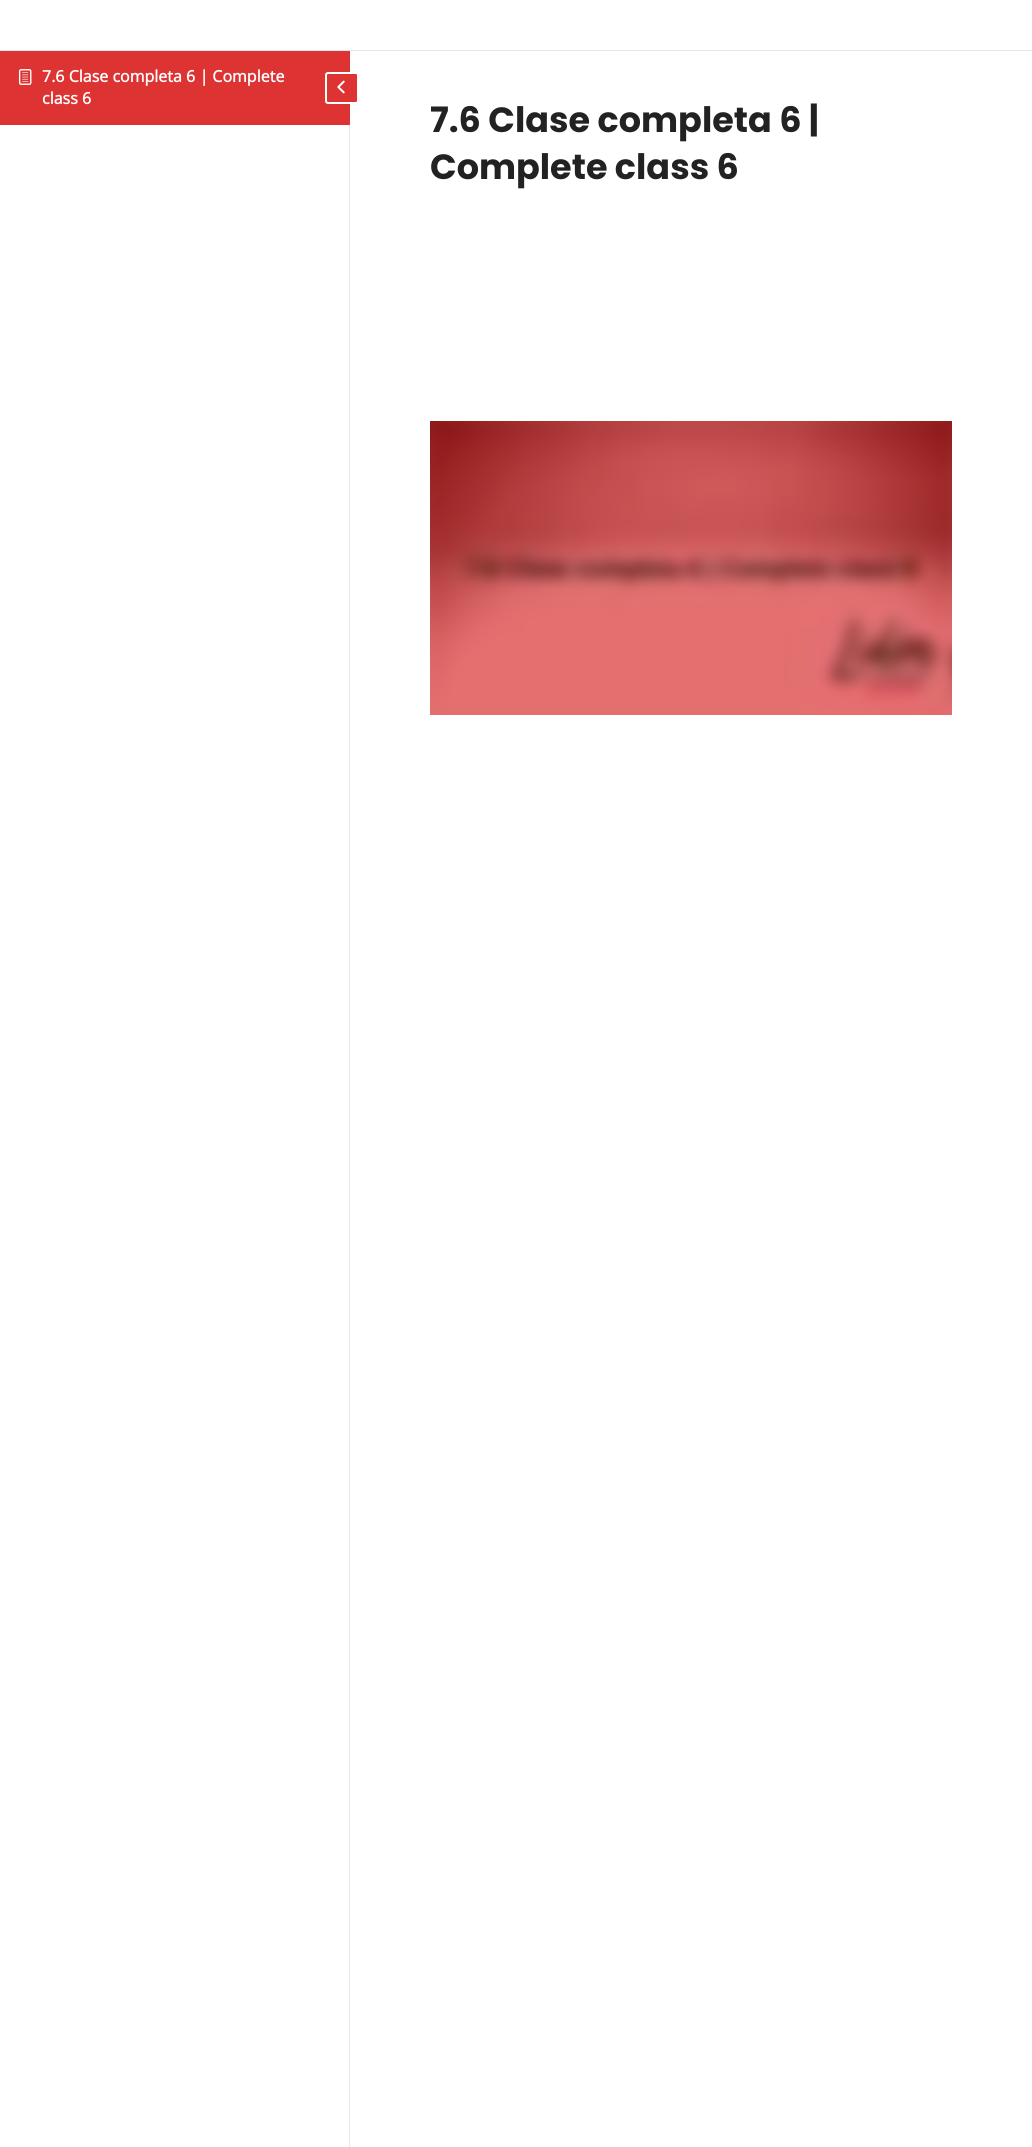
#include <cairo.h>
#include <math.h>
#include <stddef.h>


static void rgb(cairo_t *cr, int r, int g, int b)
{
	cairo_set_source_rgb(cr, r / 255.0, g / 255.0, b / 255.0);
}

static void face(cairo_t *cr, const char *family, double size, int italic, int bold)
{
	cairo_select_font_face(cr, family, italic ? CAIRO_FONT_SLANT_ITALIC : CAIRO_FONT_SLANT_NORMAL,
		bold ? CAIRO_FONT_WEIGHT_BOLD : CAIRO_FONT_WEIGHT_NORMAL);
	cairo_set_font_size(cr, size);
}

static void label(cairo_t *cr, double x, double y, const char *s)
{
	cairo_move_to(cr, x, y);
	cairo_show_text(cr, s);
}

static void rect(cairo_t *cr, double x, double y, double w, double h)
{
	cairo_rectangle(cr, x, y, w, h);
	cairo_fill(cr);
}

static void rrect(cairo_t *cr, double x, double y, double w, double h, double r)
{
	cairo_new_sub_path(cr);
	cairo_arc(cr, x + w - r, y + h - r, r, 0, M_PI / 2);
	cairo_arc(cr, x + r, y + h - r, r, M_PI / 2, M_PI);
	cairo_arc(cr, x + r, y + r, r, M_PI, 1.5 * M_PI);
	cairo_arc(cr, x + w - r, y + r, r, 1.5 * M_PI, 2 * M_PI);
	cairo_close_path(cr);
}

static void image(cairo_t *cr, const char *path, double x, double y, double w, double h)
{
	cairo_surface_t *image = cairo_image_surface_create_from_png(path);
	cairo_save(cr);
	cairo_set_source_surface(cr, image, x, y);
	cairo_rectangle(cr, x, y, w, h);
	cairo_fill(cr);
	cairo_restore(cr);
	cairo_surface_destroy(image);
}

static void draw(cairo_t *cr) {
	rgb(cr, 255, 255, 255);
	cairo_paint(cr);
	rgb(cr, 226, 231, 237);
	rect(cr, 349, 125, 1, 2022);
	rgb(cr, 221, 51, 51);
	rect(cr, 0, 51, 350, 74);
	image(cr, "image0.png", 18, 69, 14, 16);
	face(cr, "Open Sans", 16, 0, 1);
	rgb(cr, 255, 255, 255);
	label(cr, 42, 82, "7.6 Clase completa 6 | Complete");
	label(cr, 42, 104, "class 6");
	rgb(cr, 221, 51, 51);
	rrect(cr, 326, 73, 32, 30, 2);
	cairo_fill_preserve(cr);
	rgb(cr, 255, 255, 255);
	cairo_stroke(cr);
	image(cr, "image1.png", 337, 80, 8, 14);
	rgb(cr, 226, 231, 237);
	rect(cr, 0, 50, 1032, 1);
	face(cr, "Poppins", 35, 0, 1);
	rgb(cr, 34, 34, 34);
	label(cr, 430, 132, "7.6 Clase completa 6 |");
	label(cr, 430, 179, "Complete class 6");
	image(cr, "image2.png", 430, 421, 522, 294);
}

int main(void) {
	cairo_surface_t *surface = cairo_image_surface_create(CAIRO_FORMAT_RGB24, 1032, 2147);
	cairo_t *cr = cairo_create(surface);
	cairo_font_options_t *options = cairo_font_options_create();
	cairo_font_options_set_hint_metrics(options, CAIRO_HINT_METRICS_OFF);
	cairo_font_options_set_hint_style(options, CAIRO_HINT_STYLE_NONE);
	cairo_set_font_options(cr, options);
	cairo_set_miter_limit(cr, 4);
	draw(cr);
	cairo_surface_write_to_png(surface, "render.png");
	cairo_font_options_destroy(options);
	cairo_destroy(cr);
	cairo_surface_destroy(surface);
	return 0;
}
